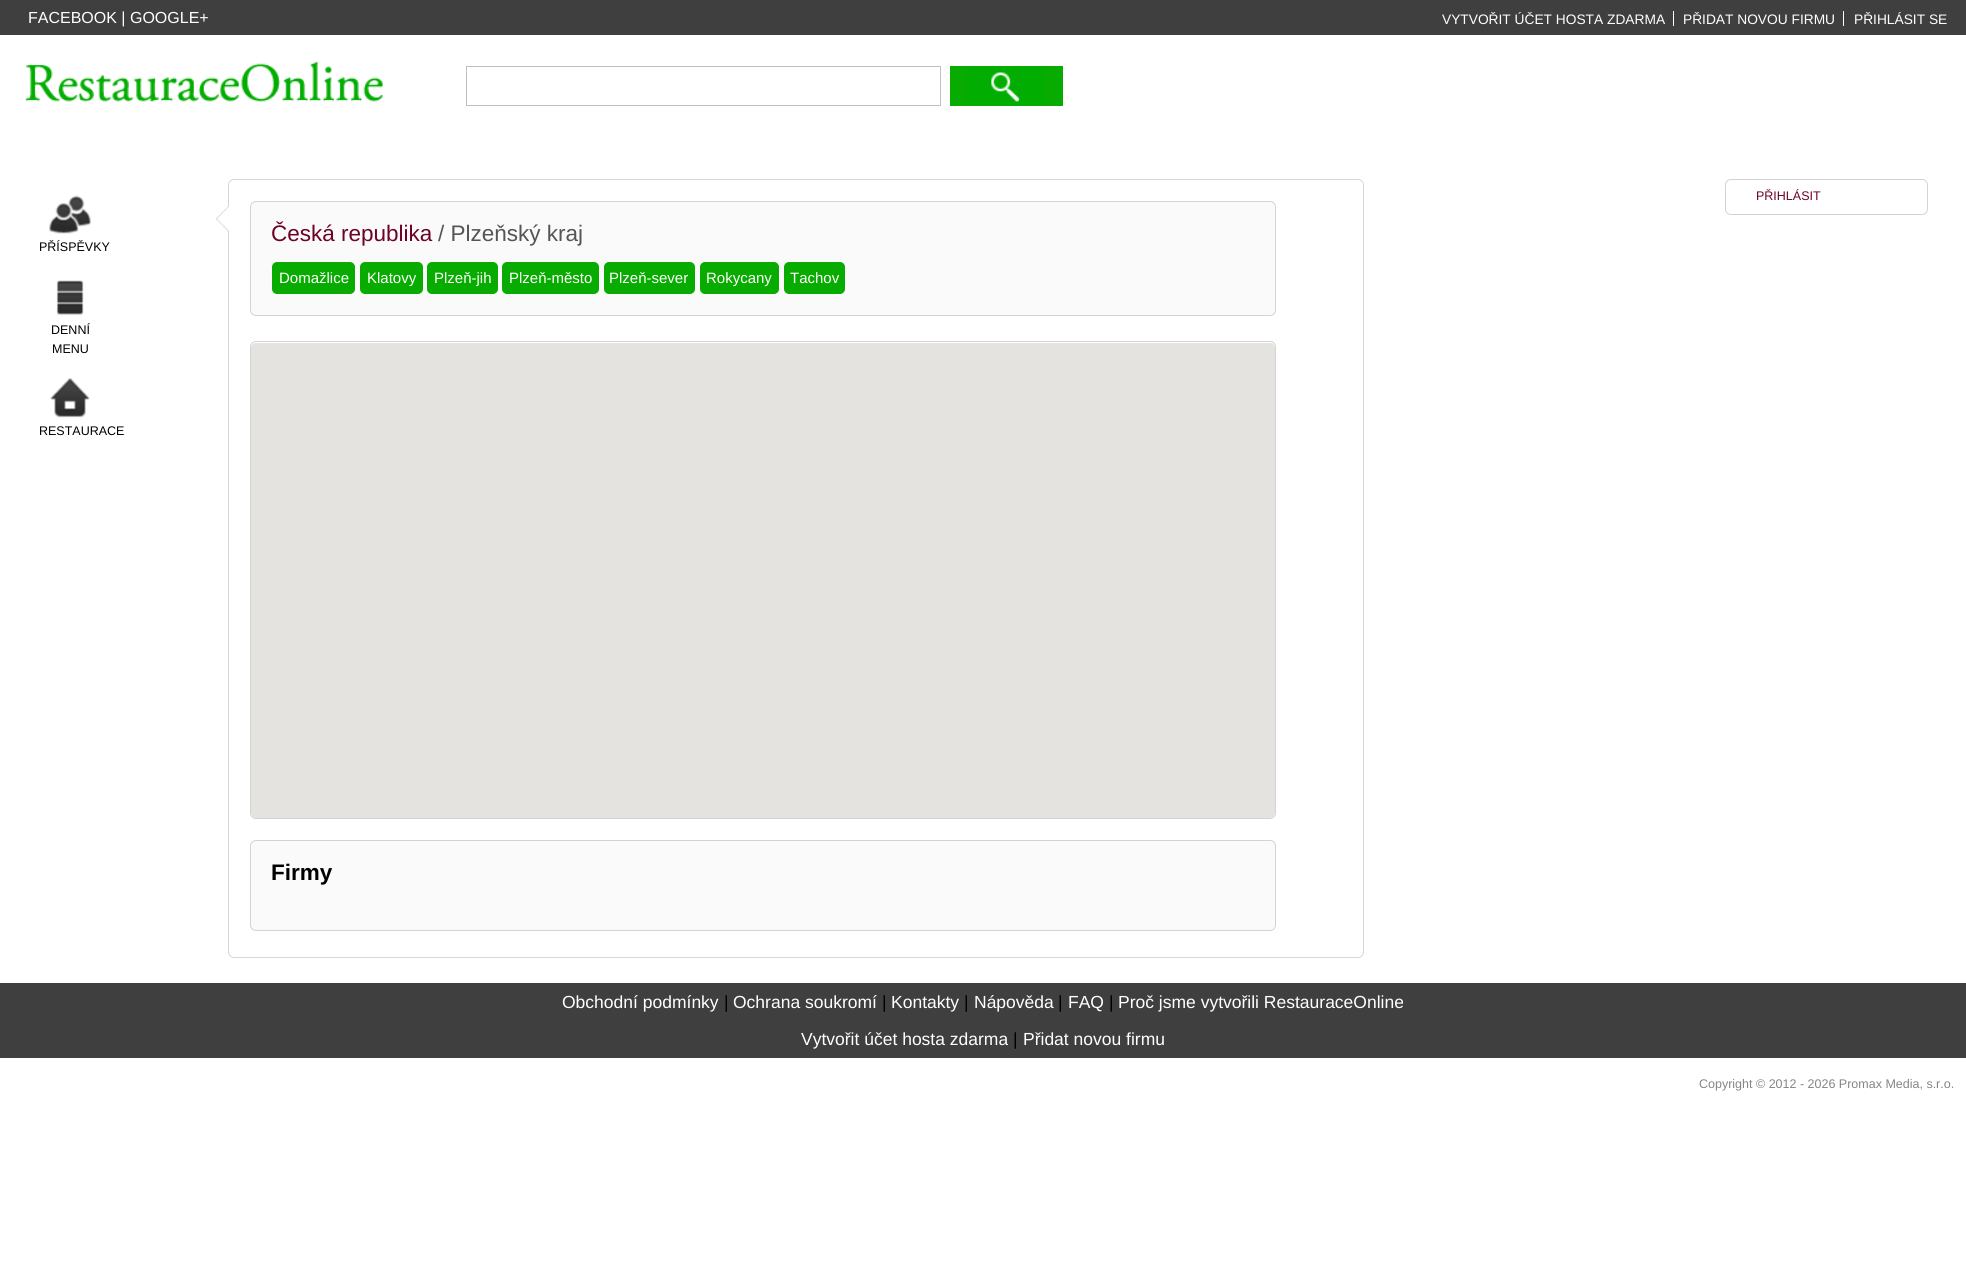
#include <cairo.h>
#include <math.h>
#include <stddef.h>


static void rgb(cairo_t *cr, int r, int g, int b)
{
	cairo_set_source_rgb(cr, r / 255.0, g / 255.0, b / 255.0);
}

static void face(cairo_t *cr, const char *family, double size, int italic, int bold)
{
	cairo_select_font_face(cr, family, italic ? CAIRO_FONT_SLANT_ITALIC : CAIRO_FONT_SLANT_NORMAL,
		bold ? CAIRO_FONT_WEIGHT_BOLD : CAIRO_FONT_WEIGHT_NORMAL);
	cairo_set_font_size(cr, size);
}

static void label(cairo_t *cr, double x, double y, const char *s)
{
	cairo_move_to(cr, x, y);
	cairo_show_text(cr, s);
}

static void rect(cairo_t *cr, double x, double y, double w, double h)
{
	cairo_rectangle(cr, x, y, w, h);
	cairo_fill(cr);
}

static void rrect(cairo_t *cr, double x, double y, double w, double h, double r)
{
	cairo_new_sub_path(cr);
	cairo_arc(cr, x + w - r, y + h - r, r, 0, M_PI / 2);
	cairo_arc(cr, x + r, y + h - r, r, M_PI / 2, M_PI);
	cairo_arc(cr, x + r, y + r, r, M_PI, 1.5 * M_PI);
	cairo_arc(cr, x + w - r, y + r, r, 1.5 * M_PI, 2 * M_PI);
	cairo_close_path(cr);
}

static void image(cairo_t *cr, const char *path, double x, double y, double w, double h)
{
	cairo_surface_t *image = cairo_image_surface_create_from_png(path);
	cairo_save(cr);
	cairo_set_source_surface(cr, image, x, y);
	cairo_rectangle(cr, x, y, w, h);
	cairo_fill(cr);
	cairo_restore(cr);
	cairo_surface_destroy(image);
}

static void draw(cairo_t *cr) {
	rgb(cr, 255, 255, 255);
	cairo_paint(cr);
	rgb(cr, 63, 63, 63);
	rect(cr, 0, 0, 1966, 35);
	face(cr, "Liberation Sans", 16, 0, 0);
	rgb(cr, 255, 255, 255);
	label(cr, 28, 23, "FACEBOOK | GOOGLE+");
	face(cr, "Liberation Sans", 13.75, 0, 0);
	label(cr, 1442, 24, "VYTVOŘIT ÚČET HOSTA ZDARMA");
	rect(cr, 1673, 11, 1, 15);
	label(cr, 1683, 24, "PŘIDAT NOVOU FIRMU");
	rect(cr, 1843, 11, 1, 15);
	label(cr, 1854, 24, "PŘIHLÁSIT SE");
	image(cr, "image0.png", 25, 61, 358, 41);
	cairo_rectangle(cr, 466.5, 66.5, 474, 39);
	rgb(cr, 192, 192, 192);
	cairo_set_line_width(cr, 1);
	cairo_stroke(cr);
	rgb(cr, 8, 171, 0);
	rect(cr, 950, 66, 113, 40);
	image(cr, "image1.png", 966, 67, 79, 38);
	rrect(cr, 1725.5, 179.5, 202, 35, 5.5);
	rgb(cr, 211, 211, 211);
	cairo_stroke(cr);
	face(cr, "Liberation Sans", 12.5, 0, 0);
	rgb(cr, 109, 2, 37);
	label(cr, 1756, 200, "PŘIHLÁSIT");
	image(cr, "image2.png", 49, 195, 42, 39);
	rgb(cr, 0, 0, 0);
	label(cr, 39, 251, "PŘÍSPĚVKY");
	image(cr, "image3.png", 56, 280, 28, 36);
	label(cr, 51, 334, "DENNÍ");
	label(cr, 52, 353, "MENU");
	image(cr, "image4.png", 50, 378, 40, 40);
	label(cr, 39, 435, "RESTAURACE");
	rrect(cr, 228.5, 179.5, 1135, 778, 5.5);
	rgb(cr, 215, 215, 215);
	cairo_stroke(cr);
	image(cr, "image5.png", 216, 206, 13, 26);
	rgb(cr, 250, 250, 250);
	rrect(cr, 250.5, 201.5, 1025, 114, 5.5);
	cairo_fill_preserve(cr);
	rgb(cr, 211, 211, 211);
	cairo_stroke(cr);
	face(cr, "Liberation Sans", 22.5, 0, 0);
	rgb(cr, 109, 2, 37);
	label(cr, 271, 241, "Česká republika");
	rgb(cr, 85, 85, 85);
	label(cr, 438, 241, "/ Plzeňský kraj");
	rgb(cr, 8, 171, 0);
	rrect(cr, 271.5, 261.5, 84, 33, 5.5);
	cairo_fill_preserve(cr);
	rgb(cr, 255, 255, 255);
	cairo_stroke(cr);
	face(cr, "Liberation Sans", 15, 0, 0);
	label(cr, 279, 283, "Domažlice");
	rgb(cr, 8, 171, 0);
	rrect(cr, 359.5, 261.5, 64, 33, 5.5);
	cairo_fill_preserve(cr);
	rgb(cr, 255, 255, 255);
	cairo_stroke(cr);
	label(cr, 367, 283, "Klatovy");
	rgb(cr, 8, 171, 0);
	rrect(cr, 426.5, 261.5, 72, 33, 5.5);
	cairo_fill_preserve(cr);
	rgb(cr, 255, 255, 255);
	cairo_stroke(cr);
	label(cr, 434, 283, "Plzeň-jih");
	rgb(cr, 8, 171, 0);
	rrect(cr, 501.5, 261.5, 98, 33, 5.5);
	cairo_fill_preserve(cr);
	rgb(cr, 255, 255, 255);
	cairo_stroke(cr);
	label(cr, 509, 283, "Plzeň-město");
	rgb(cr, 8, 171, 0);
	rrect(cr, 603.5, 261.5, 92, 33, 5.5);
	cairo_fill_preserve(cr);
	rgb(cr, 255, 255, 255);
	cairo_stroke(cr);
	label(cr, 609, 283, "Plzeň-sever");
	rgb(cr, 8, 171, 0);
	rrect(cr, 699.5, 261.5, 80, 33, 5.5);
	cairo_fill_preserve(cr);
	rgb(cr, 255, 255, 255);
	cairo_stroke(cr);
	label(cr, 706, 283, "Rokycany");
	rgb(cr, 8, 171, 0);
	rrect(cr, 783.5, 261.5, 62, 33, 5.5);
	cairo_fill_preserve(cr);
	rgb(cr, 255, 255, 255);
	cairo_stroke(cr);
	label(cr, 790, 283, "Tachov");
	rrect(cr, 250.5, 341.5, 1025, 477, 5.5);
	rgb(cr, 211, 211, 211);
	cairo_stroke(cr);
	rgb(cr, 229, 227, 223);
	rrect(cr, 251, 343, 1024, 475, 5);
	cairo_fill(cr);
	rgb(cr, 250, 250, 250);
	rrect(cr, 250.5, 840.5, 1025, 90, 5.5);
	cairo_fill_preserve(cr);
	rgb(cr, 211, 211, 211);
	cairo_stroke(cr);
	face(cr, "Liberation Sans", 22.5, 0, 1);
	rgb(cr, 0, 0, 0);
	label(cr, 271, 880, "Firmy");
	rgb(cr, 63, 63, 63);
	rect(cr, 0, 983, 1966, 75);
	face(cr, "Liberation Sans", 17.5, 0, 0);
	rgb(cr, 255, 255, 255);
	label(cr, 562, 1008, "Obchodní podmínky");
	rgb(cr, 0, 0, 0);
	label(cr, 724, 1008, "|");
	rgb(cr, 255, 255, 255);
	label(cr, 733, 1008, "Ochrana soukromí");
	rgb(cr, 0, 0, 0);
	label(cr, 882, 1008, "|");
	rgb(cr, 255, 255, 255);
	label(cr, 891, 1008, "Kontakty");
	rgb(cr, 0, 0, 0);
	label(cr, 964, 1008, "|");
	rgb(cr, 255, 255, 255);
	label(cr, 974, 1008, "Nápověda");
	rgb(cr, 0, 0, 0);
	label(cr, 1058, 1008, "|");
	rgb(cr, 255, 255, 255);
	label(cr, 1068, 1008, "FAQ");
	rgb(cr, 0, 0, 0);
	label(cr, 1109, 1008, "|");
	rgb(cr, 255, 255, 255);
	label(cr, 1118, 1008, "Proč jsme vytvořili RestauraceOnline");
	label(cr, 801, 1045, "Vytvořit účet hosta zdarma");
	rgb(cr, 0, 0, 0);
	label(cr, 1013, 1045, "|");
	rgb(cr, 255, 255, 255);
	label(cr, 1023, 1045, "Přidat novou firmu");
	face(cr, "Liberation Sans", 12.5, 0, 0);
	rgb(cr, 133, 133, 133);
	label(cr, 1699, 1088, "Copyright © 2012 - 2026 Promax Media, s.r.o.");
}

int main(void) {
	cairo_surface_t *surface = cairo_image_surface_create(CAIRO_FORMAT_RGB24, 1966, 1270);
	cairo_t *cr = cairo_create(surface);
	cairo_font_options_t *options = cairo_font_options_create();
	cairo_font_options_set_hint_metrics(options, CAIRO_HINT_METRICS_OFF);
	cairo_font_options_set_hint_style(options, CAIRO_HINT_STYLE_NONE);
	cairo_set_font_options(cr, options);
	cairo_set_miter_limit(cr, 4);
	draw(cr);
	cairo_surface_write_to_png(surface, "render.png");
	cairo_font_options_destroy(options);
	cairo_destroy(cr);
	cairo_surface_destroy(surface);
	return 0;
}
